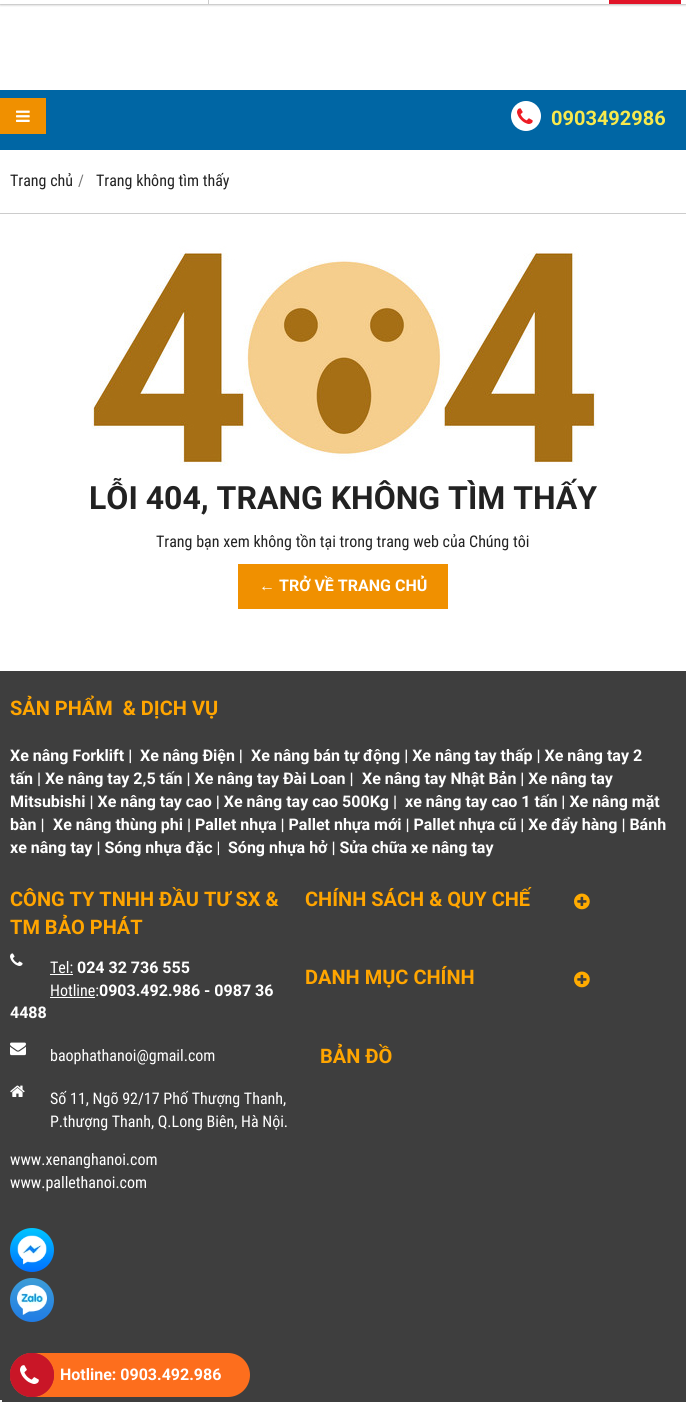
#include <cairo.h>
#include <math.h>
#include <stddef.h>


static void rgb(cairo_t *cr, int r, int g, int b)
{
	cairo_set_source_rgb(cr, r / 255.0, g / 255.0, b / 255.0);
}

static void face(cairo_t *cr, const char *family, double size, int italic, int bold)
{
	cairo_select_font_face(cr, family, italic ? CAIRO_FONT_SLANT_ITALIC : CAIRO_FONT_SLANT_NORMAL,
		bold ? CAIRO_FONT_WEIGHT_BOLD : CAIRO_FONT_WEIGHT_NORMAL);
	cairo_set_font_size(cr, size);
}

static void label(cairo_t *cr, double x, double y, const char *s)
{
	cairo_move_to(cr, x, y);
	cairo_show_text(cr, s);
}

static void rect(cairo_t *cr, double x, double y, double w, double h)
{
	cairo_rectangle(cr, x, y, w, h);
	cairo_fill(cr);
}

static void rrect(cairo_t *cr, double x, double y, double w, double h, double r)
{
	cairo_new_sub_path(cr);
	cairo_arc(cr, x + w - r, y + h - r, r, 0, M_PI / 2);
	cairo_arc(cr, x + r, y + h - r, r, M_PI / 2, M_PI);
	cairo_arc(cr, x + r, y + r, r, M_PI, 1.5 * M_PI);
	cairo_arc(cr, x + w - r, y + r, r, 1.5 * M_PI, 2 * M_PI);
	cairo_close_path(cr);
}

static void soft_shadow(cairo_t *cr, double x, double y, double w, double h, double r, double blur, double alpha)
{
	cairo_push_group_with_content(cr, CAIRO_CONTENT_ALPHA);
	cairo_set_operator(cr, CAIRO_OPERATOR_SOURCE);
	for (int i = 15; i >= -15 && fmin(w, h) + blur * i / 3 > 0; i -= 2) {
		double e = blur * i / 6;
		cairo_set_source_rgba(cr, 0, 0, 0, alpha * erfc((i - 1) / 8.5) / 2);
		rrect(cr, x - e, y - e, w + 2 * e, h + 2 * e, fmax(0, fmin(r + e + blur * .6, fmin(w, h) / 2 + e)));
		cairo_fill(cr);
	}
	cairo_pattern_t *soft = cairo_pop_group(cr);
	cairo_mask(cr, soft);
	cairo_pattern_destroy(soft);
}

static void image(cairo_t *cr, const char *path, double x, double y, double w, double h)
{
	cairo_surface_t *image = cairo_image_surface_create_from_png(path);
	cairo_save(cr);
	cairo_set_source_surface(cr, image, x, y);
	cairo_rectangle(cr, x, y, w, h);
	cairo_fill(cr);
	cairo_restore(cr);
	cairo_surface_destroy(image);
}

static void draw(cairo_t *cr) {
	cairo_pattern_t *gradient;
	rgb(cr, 255, 255, 255);
	cairo_paint(cr);
	cairo_save(cr);
	cairo_rectangle(cr, 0, 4, 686, 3);
	cairo_clip(cr);
	rgb(cr, 0, 0, 0);
	soft_shadow(cr, 0, -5, 686, 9, 0, 1.5, 0.5);
	cairo_restore(cr);
	rgb(cr, 204, 204, 204);
	rect(cr, 208, 0, 1, 4);
	rgb(cr, 225, 20, 40);
	rect(cr, 609, 0, 72, 4);
	rgb(cr, 0, 102, 164);
	rect(cr, 0, 90, 686, 60);
	rgb(cr, 240, 144, 0);
	rect(cr, 0, 98, 46, 36);
	image(cr, "image0.png", 16, 110, 14, 12);
	rgb(cr, 255, 255, 255);
	cairo_arc(cr, 526, 116, 15, 0, 2 * M_PI);
	cairo_fill(cr);
	image(cr, "image1.png", 517, 108, 16, 16);
	face(cr, "Roboto", 20, 0, 1);
	rgb(cr, 247, 233, 77);
	label(cr, 551, 125, "0903492986");
	rgb(cr, 204, 204, 204);
	rect(cr, 0, 213, 686, 1);
	face(cr, "Roboto Condensed", 16, 0, 0);
	rgb(cr, 34, 34, 34);
	label(cr, 10, 186, "Trang chủ");
	rgb(cr, 119, 119, 119);
	label(cr, 78, 186, "/");
	rgb(cr, 34, 34, 34);
	label(cr, 96, 186, "Trang không tìm thấy");
	image(cr, "image2.png", 91, 246, 506, 220);
	face(cr, "Roboto", 32, 0, 1);
	label(cr, 89, 509, "LỖI 404, TRANG KHÔNG TÌM THẤY");
	face(cr, "Roboto Condensed", 16, 0, 0);
	label(cr, 156, 547, "Trang bạn xem không tồn tại trong trang web của Chúng tôi");
	rgb(cr, 240, 144, 0);
	rect(cr, 238, 564, 210, 45);
	face(cr, "Liberation Sans", 16, 0, 1);
	rgb(cr, 255, 255, 255);
	label(cr, 259, 591, "←");
	face(cr, "Roboto", 16, 0, 1);
	label(cr, 279, 591, "TRỞ VỀ TRANG CHỦ");
	rgb(cr, 62, 62, 62);
	rect(cr, 0, 671, 686, 731);
	face(cr, "Roboto", 20, 0, 1);
	rgb(cr, 255, 165, 0);
	label(cr, 10, 715, "SẢN PHẨM  & DỊCH VỤ");
	face(cr, "Roboto", 16, 0, 1);
	rgb(cr, 255, 255, 255);
	label(cr, 10, 761, "Xe nâng Forklift |");
	label(cr, 140, 761, "Xe nâng Điện |");
	label(cr, 251, 761, "Xe nâng bán tự động | Xe nâng tay thấp | Xe nâng tay 2");
	label(cr, 10, 784, "tấn | Xe nâng tay 2,5 tấn | Xe nâng tay Đài Loan |");
	label(cr, 362, 784, "Xe nâng tay Nhật Bản | Xe nâng tay");
	label(cr, 10, 807, "Mitsubishi | Xe nâng tay cao | Xe nâng tay cao 500Kg |");
	label(cr, 405, 807, "xe nâng tay cao 1 tấn | Xe nâng mặt");
	label(cr, 10, 830, "bàn |");
	label(cr, 53, 830, "Xe nâng thùng phi | Pallet nhựa | Pallet nhựa mới | Pallet nhựa cũ | Xe đẩy hàng | Bánh");
	label(cr, 10, 853, "xe nâng tay | Sóng nhựa đặc |");
	label(cr, 228, 853, "Sóng nhựa hở | Sửa chữa xe nâng tay");
	face(cr, "Roboto", 20, 0, 1);
	rgb(cr, 255, 165, 0);
	label(cr, 10, 906, "CÔNG TY TNHH ĐẦU TƯ SX &");
	label(cr, 10, 934, "TM BẢO PHÁT");
	image(cr, "image3.png", 10, 953, 13, 13);
	face(cr, "Roboto Condensed", 16, 0, 0);
	rgb(cr, 255, 255, 255);
	label(cr, 50, 973, "Tel:");
	rect(cr, 50, 974, 23, 1);
	face(cr, "Roboto", 16, 0, 1);
	label(cr, 77, 973, "024 32 736 555");
	face(cr, "Roboto Condensed", 16, 0, 0);
	label(cr, 50, 996, "Hotline:");
	rect(cr, 50, 997, 45, 1);
	face(cr, "Roboto", 16, 0, 1);
	label(cr, 99, 996, "0903.492.986 - 0987 36");
	label(cr, 10, 1018, "4488");
	image(cr, "image4.png", 10, 1042, 16, 14);
	face(cr, "Roboto Condensed", 16, 0, 0);
	label(cr, 50, 1061, "baophathanoi@gmail.com");
	image(cr, "image5.png", 10, 1085, 15, 12);
	label(cr, 50, 1104, "Số 11, Ngõ 92/17 Phố Thượng Thanh,");
	label(cr, 50, 1127, "P.thượng Thanh, Q.Long Biên, Hà Nội.");
	label(cr, 10, 1165, "www.xenanghanoi.com");
	label(cr, 10, 1188, "www.pallethanoi.com");
	face(cr, "Roboto", 20, 0, 1);
	rgb(cr, 255, 165, 0);
	label(cr, 305, 906, "CHÍNH SÁCH & QUY CHẾ");
	image(cr, "image6.png", 574, 893, 16, 17);
	label(cr, 305, 984, "DANH MỤC CHÍNH");
	image(cr, "image6.png", 574, 971, 16, 17);
	label(cr, 320, 1063, "BẢN ĐỒ");
	gradient = cairo_pattern_create_linear(32, 1228, 32, 1272);
	cairo_pattern_add_color_stop_rgba(gradient, 0, 0, 0.773, 1, 1);
	cairo_pattern_add_color_stop_rgba(gradient, 1, 0, 0.439, 1, 1);
	cairo_set_source(cr, gradient);
	cairo_pattern_destroy(gradient);
	cairo_new_path(cr);
	cairo_arc(cr, 32, 1250, 22, 0, 2 * M_PI);
	cairo_fill(cr);
	image(cr, "image7.png", 17, 1235, 30, 30);
	gradient = cairo_pattern_create_linear(32, 1278, 32, 1322);
	cairo_pattern_add_color_stop_rgba(gradient, 0, 0.239, 0.616, 0.843, 1);
	cairo_pattern_add_color_stop_rgba(gradient, 1, 0.125, 0.486, 0.898, 1);
	cairo_set_source(cr, gradient);
	cairo_pattern_destroy(gradient);
	cairo_arc(cr, 32, 1300, 22, 0, 2 * M_PI);
	cairo_fill(cr);
	image(cr, "image8.png", 17, 1285, 30, 30);
	rgb(cr, 253, 110, 29);
	rrect(cr, 10, 1353, 240, 44, 22);
	cairo_fill(cr);
	rgb(cr, 196, 23, 44);
	cairo_arc(cr, 32, 1375, 22, 0, 2 * M_PI);
	cairo_fill(cr);
	cairo_set_source_rgba(cr, 0.867, 0.082, 0.082, 0.2);
	cairo_arc(cr, 32, 1375, 21.5, 0, 2 * M_PI);
	cairo_fill_preserve(cr);
	rgb(cr, 196, 23, 44);
	cairo_set_line_width(cr, 1);
	cairo_stroke(cr);
	image(cr, "image9.png", 20, 1365, 19, 19);
	face(cr, "Roboto", 16, 0, 1);
	rgb(cr, 255, 255, 255);
	label(cr, 60, 1380, "Hotline: 0903.492.986");
	rgb(cr, 245, 245, 245);
	rect(cr, 0, 1400, 2, 2);
}

int main(void) {
	cairo_surface_t *surface = cairo_image_surface_create(CAIRO_FORMAT_RGB24, 686, 1402);
	cairo_t *cr = cairo_create(surface);
	cairo_font_options_t *options = cairo_font_options_create();
	cairo_font_options_set_hint_metrics(options, CAIRO_HINT_METRICS_OFF);
	cairo_font_options_set_hint_style(options, CAIRO_HINT_STYLE_NONE);
	cairo_set_font_options(cr, options);
	cairo_set_miter_limit(cr, 4);
	draw(cr);
	cairo_surface_write_to_png(surface, "render.png");
	cairo_font_options_destroy(options);
	cairo_destroy(cr);
	cairo_surface_destroy(surface);
	return 0;
}
